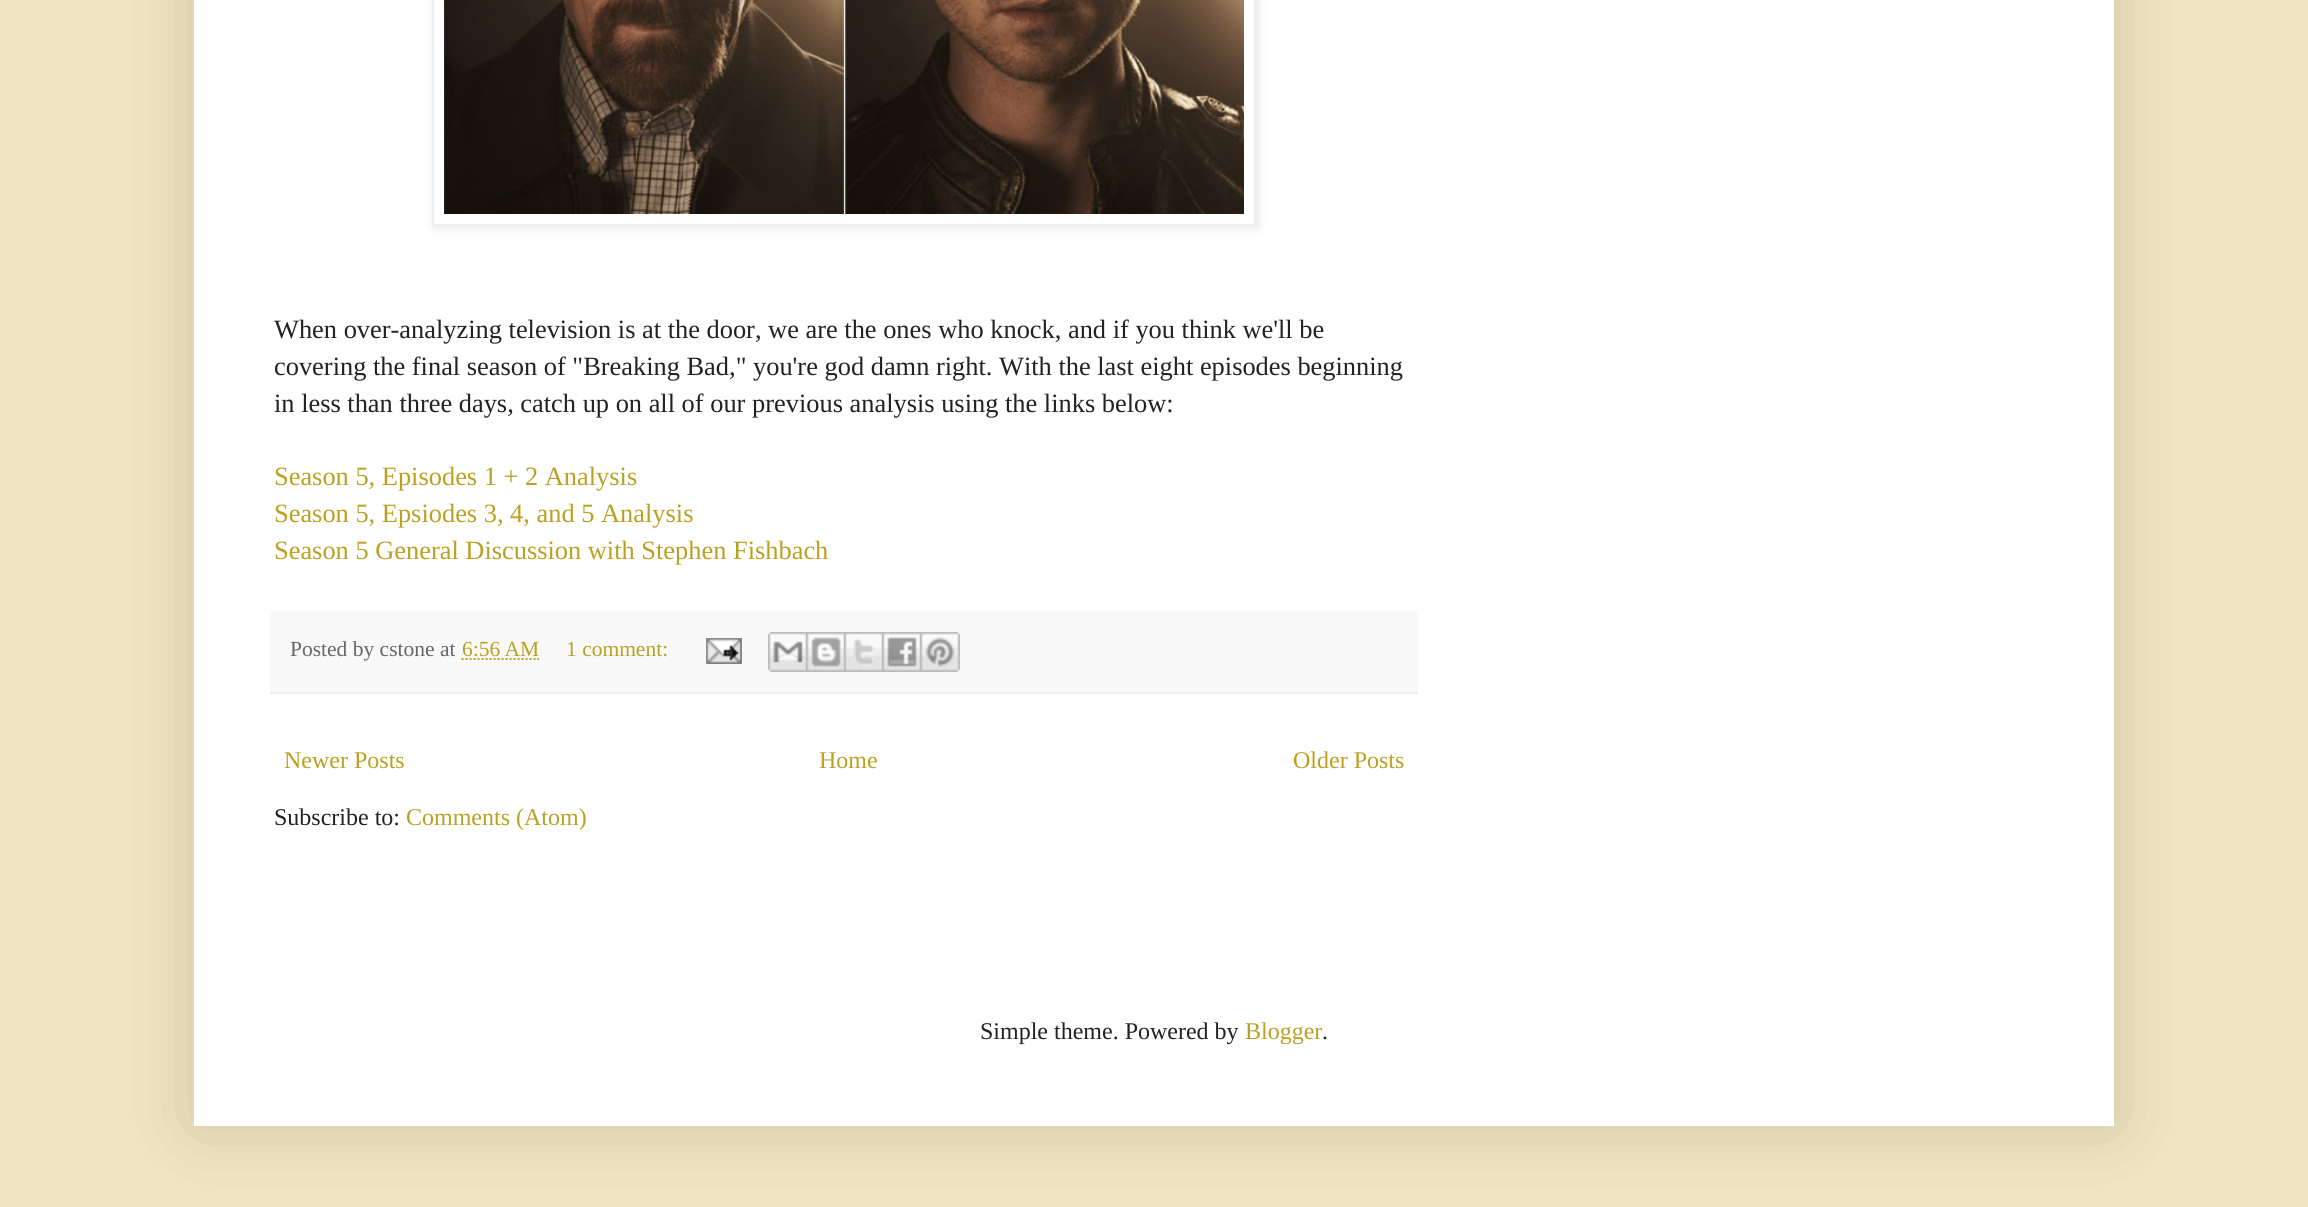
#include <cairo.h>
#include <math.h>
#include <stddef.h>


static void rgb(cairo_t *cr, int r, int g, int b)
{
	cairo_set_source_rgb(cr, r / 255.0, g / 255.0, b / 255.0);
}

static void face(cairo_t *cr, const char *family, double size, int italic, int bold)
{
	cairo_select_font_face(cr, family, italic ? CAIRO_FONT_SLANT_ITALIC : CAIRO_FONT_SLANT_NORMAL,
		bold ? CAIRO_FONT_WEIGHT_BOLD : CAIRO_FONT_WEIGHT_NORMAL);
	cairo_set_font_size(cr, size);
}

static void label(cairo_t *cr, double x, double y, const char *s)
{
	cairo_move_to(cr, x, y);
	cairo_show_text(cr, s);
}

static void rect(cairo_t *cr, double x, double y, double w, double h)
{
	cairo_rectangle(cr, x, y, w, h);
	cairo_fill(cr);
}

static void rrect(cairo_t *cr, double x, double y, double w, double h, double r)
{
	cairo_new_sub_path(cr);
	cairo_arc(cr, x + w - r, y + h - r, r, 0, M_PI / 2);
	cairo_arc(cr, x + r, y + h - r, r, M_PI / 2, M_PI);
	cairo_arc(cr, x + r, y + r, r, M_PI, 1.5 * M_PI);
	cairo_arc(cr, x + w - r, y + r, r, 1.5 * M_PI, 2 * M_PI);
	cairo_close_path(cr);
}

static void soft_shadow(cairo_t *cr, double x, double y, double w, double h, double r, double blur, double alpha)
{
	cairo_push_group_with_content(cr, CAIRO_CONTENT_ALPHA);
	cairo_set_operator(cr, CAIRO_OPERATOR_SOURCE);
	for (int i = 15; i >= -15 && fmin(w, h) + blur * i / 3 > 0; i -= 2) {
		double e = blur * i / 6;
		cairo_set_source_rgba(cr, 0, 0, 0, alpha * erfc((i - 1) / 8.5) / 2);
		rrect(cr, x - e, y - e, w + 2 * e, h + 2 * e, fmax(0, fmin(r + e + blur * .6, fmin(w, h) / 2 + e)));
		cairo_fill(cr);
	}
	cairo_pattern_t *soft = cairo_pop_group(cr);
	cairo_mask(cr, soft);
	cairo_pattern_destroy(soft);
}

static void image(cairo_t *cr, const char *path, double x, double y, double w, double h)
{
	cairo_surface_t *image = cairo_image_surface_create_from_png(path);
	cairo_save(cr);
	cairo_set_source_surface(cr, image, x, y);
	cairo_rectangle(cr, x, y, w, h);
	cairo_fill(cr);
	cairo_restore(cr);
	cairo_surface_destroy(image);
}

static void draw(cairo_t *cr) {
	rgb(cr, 241, 230, 193);
	cairo_paint(cr);
	rgb(cr, 0, 0, 0);
	soft_shadow(cr, 194, -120, 1920, 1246, 0, 40, 0.15);
	rgb(cr, 255, 255, 255);
	rect(cr, 194, 0, 1920, 1126);
	cairo_save(cr);
	cairo_set_fill_rule(cr, CAIRO_FILL_RULE_EVEN_ODD);
	cairo_new_path(cr);
	cairo_move_to(cr, 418, 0);
	cairo_line_to(cr, 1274, 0);
	cairo_line_to(cr, 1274, 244);
	cairo_line_to(cr, 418, 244);
	cairo_close_path(cr);
	cairo_move_to(cr, 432, -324);
	cairo_line_to(cr, 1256, -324);
	cairo_line_to(cr, 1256, 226);
	cairo_line_to(cr, 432, 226);
	cairo_close_path(cr);
	cairo_clip(cr);
	rgb(cr, 0, 0, 0);
	soft_shadow(cr, 434, -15, 824, 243, 0, 5, 0.1);
	cairo_restore(cr);
	cairo_rectangle(cr, 433, -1, 822, 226);
	rgb(cr, 238, 238, 238);
	cairo_stroke(cr);
	image(cr, "image0.png", 444, 0, 800, 214);
	face(cr, "Liberation Serif", 26.4, 0, 0);
	rgb(cr, 34, 34, 34);
	label(cr, 274, 338, "When over-analyzing television is at the door, we are the ones who knock, and if you think we'll be");
	label(cr, 274, 375, "covering the final season of \"Breaking Bad,\" you're god damn right. With the last eight episodes beginning");
	label(cr, 274, 412, "in less than three days, catch up on all of our previous analysis using the links below:");
	rgb(cr, 187, 160, 33);
	label(cr, 274, 485, "Season 5, Episodes 1 + 2 Analysis");
	label(cr, 274, 522, "Season 5, Epsiodes 3, 4, and 5 Analysis");
	label(cr, 274, 559, "Season 5 General Discussion with Stephen Fishbach");
	rgb(cr, 249, 249, 249);
	rect(cr, 270, 610, 1148, 82);
	rgb(cr, 238, 238, 238);
	rect(cr, 270, 692, 1148, 2);
	face(cr, "Liberation Serif", 21.5, 0, 0);
	rgb(cr, 102, 102, 102);
	label(cr, 290, 656, "Posted by cstone at");
	rgb(cr, 187, 160, 33);
	label(cr, 462, 656, "6:56 AM");
	cairo_new_path(cr);
	cairo_move_to(cr, 461.5, 659);
	cairo_line_to(cr, 539, 659);
	cairo_set_dash(cr, (double[]){2, 2}, 2, 0);
	cairo_stroke(cr);
	label(cr, 566, 656, "1 comment:");
	image(cr, "image1.png", 706, 638, 36, 26);
	image(cr, "image2.png", 768, 632, 38, 40);
	image(cr, "image3.png", 806, 632, 38, 40);
	image(cr, "image4.png", 844, 632, 38, 40);
	image(cr, "image5.png", 882, 632, 38, 40);
	image(cr, "image6.png", 920, 632, 40, 40);
	face(cr, "Liberation Serif", 24, 0, 0);
	label(cr, 284, 768, "Newer Posts");
	label(cr, 819, 768, "Home");
	label(cr, 1293, 768, "Older Posts");
	rgb(cr, 34, 34, 34);
	label(cr, 274, 825, "Subscribe to:");
	rgb(cr, 187, 160, 33);
	label(cr, 406, 825, "Comments (Atom)");
	rgb(cr, 34, 34, 34);
	label(cr, 980, 1039, "Simple theme. Powered by");
	rgb(cr, 187, 160, 33);
	label(cr, 1245, 1039, "Blogger");
	rgb(cr, 34, 34, 34);
	label(cr, 1322, 1039, ".");
}

int main(void) {
	cairo_surface_t *surface = cairo_image_surface_create(CAIRO_FORMAT_RGB24, 2308, 1207);
	cairo_t *cr = cairo_create(surface);
	cairo_font_options_t *options = cairo_font_options_create();
	cairo_font_options_set_hint_metrics(options, CAIRO_HINT_METRICS_OFF);
	cairo_font_options_set_hint_style(options, CAIRO_HINT_STYLE_NONE);
	cairo_set_font_options(cr, options);
	cairo_set_miter_limit(cr, 4);
	draw(cr);
	cairo_surface_write_to_png(surface, "render.png");
	cairo_font_options_destroy(options);
	cairo_destroy(cr);
	cairo_surface_destroy(surface);
	return 0;
}
